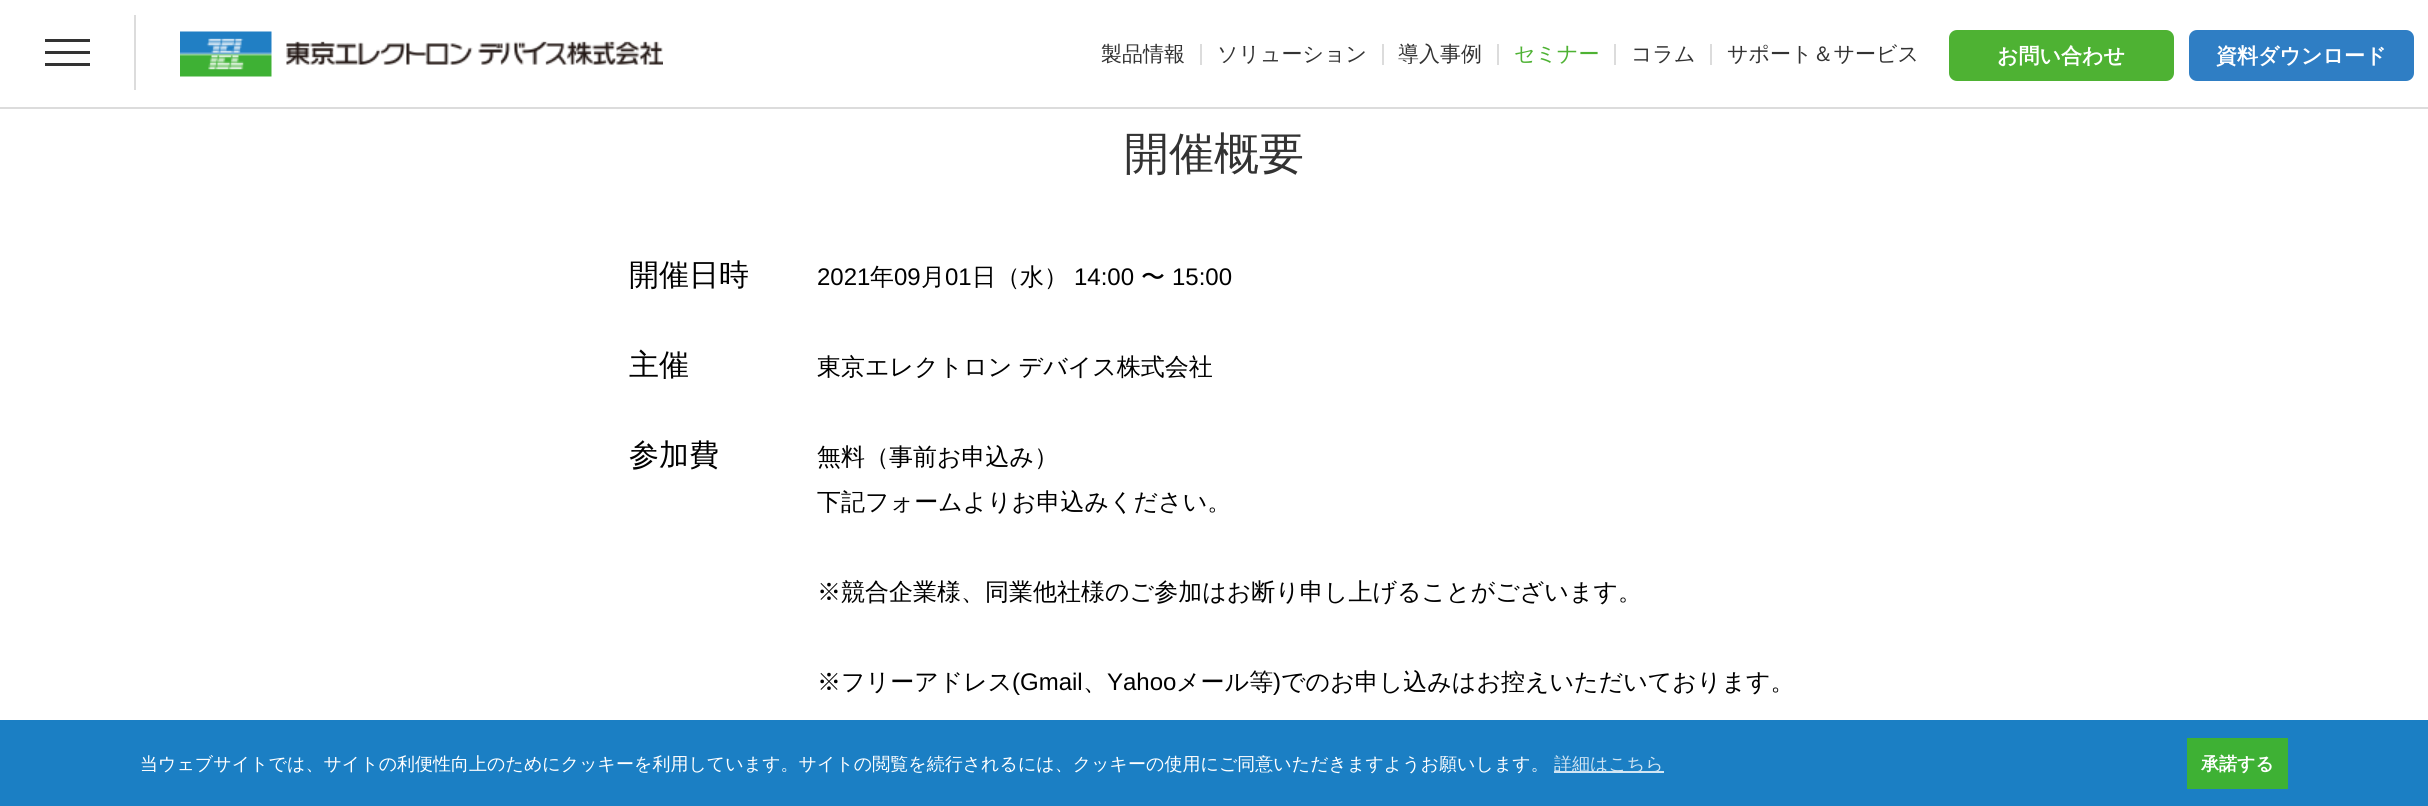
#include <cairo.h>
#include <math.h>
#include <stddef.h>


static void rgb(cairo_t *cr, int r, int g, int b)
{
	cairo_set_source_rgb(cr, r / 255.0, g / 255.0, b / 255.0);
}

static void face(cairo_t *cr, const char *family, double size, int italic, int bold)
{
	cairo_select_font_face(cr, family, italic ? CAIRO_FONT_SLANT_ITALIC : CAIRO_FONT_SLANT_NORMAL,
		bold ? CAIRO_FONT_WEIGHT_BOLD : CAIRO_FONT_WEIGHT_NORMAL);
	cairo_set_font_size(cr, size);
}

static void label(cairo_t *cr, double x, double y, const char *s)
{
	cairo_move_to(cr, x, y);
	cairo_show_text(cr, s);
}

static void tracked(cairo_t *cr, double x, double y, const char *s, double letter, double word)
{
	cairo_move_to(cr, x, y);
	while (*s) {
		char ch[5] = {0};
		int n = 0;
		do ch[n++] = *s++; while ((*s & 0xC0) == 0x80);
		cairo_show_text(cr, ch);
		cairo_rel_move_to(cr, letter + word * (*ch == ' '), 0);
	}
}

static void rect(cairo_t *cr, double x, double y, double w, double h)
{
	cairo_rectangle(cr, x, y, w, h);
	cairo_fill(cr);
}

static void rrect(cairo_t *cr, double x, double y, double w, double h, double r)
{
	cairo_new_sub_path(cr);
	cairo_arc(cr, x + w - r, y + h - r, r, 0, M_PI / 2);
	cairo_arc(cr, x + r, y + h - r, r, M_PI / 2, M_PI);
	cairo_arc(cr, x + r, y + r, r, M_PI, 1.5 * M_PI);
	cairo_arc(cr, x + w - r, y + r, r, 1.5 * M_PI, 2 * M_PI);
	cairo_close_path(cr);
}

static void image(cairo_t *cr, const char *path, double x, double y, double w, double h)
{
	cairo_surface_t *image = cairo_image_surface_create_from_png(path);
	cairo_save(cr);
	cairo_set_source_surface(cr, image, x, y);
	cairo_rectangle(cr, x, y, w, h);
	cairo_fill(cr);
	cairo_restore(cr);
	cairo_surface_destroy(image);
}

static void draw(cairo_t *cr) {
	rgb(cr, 255, 255, 255);
	cairo_paint(cr);
	rgb(cr, 220, 220, 220);
	rect(cr, 0, 107, 2428, 2);
	rect(cr, 134, 15, 2, 75);
	rgb(cr, 51, 51, 51);
	rect(cr, 45, 51, 45, 3);
	rect(cr, 45, 39, 45, 3);
	rect(cr, 45, 63, 45, 3);
	image(cr, "image0.png", 180, 31, 483, 46);
	rgb(cr, 220, 220, 220);
	rect(cr, 1200, 44, 2, 21);
	face(cr, "WenQuanYi Zen Hei Medium", 21, 0, 0);
	rgb(cr, 51, 51, 51);
	label(cr, 1101, 61, "製品情報");
	rgb(cr, 220, 220, 220);
	rect(cr, 1382, 44, 2, 21);
	rgb(cr, 51, 51, 51);
	label(cr, 1217, 61, "ソリューション");
	rgb(cr, 220, 220, 220);
	rect(cr, 1497, 44, 2, 21);
	rgb(cr, 51, 51, 51);
	label(cr, 1398, 61, "導入事例");
	rgb(cr, 220, 220, 220);
	rect(cr, 1614, 44, 2, 21);
	rgb(cr, 78, 178, 51);
	label(cr, 1514, 61, "セミナー");
	rgb(cr, 220, 220, 220);
	rect(cr, 1710, 44, 2, 21);
	rgb(cr, 51, 51, 51);
	label(cr, 1631, 61, "コラム");
	label(cr, 1727, 61, "サポート＆サービス");
	rgb(cr, 78, 178, 51);
	rrect(cr, 1949, 30, 225, 51, 8);
	cairo_fill(cr);
	face(cr, "WenQuanYi Zen Hei", 21, 0, 1);
	rgb(cr, 255, 255, 255);
	label(cr, 1997, 63, "お問い合わせ");
	rgb(cr, 47, 126, 196);
	rrect(cr, 2189, 30, 225, 51, 8);
	cairo_fill(cr);
	rgb(cr, 255, 255, 255);
	label(cr, 2216, 63, "資料ダウンロード");
	face(cr, "WenQuanYi Zen Hei Medium", 45, 0, 0);
	rgb(cr, 51, 51, 51);
	label(cr, 1124, 169, "開催概要");
	face(cr, "WenQuanYi Zen Hei Medium", 30, 0, 0);
	rgb(cr, 0, 0, 0);
	label(cr, 629, 285, "開催日時");
	face(cr, "Liberation Sans", 24, 0, 0);
	label(cr, 817, 285, "2021");
	face(cr, "WenQuanYi Zen Hei Medium", 24, 0, 0);
	label(cr, 870, 285, "年");
	face(cr, "Liberation Sans", 24, 0, 0);
	label(cr, 894, 285, "09");
	face(cr, "WenQuanYi Zen Hei Medium", 24, 0, 0);
	label(cr, 921, 285, "月");
	face(cr, "Liberation Sans", 24, 0, 0);
	label(cr, 945, 285, "01");
	face(cr, "WenQuanYi Zen Hei Medium", 24, 0, 0);
	label(cr, 972, 285, "日（水）");
	face(cr, "Liberation Sans", 24, 0, 0);
	label(cr, 1074, 285, "14:00");
	face(cr, "WenQuanYi Zen Hei Medium", 24, 0, 0);
	label(cr, 1141, 285, "〜");
	face(cr, "Liberation Sans", 24, 0, 0);
	label(cr, 1172, 285, "15:00");
	face(cr, "WenQuanYi Zen Hei Medium", 30, 0, 0);
	label(cr, 629, 375, "主催");
	face(cr, "WenQuanYi Zen Hei Medium", 24, 0, 0);
	tracked(cr, 817, 375, "東京エレクトロン デバイス株式会社", 0, -1);
	face(cr, "WenQuanYi Zen Hei Medium", 30, 0, 0);
	label(cr, 629, 465, "参加費");
	face(cr, "WenQuanYi Zen Hei Medium", 24, 0, 0);
	label(cr, 817, 465, "無料（事前お申込み）");
	label(cr, 817, 510, "下記フォームよりお申込みください。");
	label(cr, 817, 600, "※競合企業様、同業他社様のご参加はお断り申し上げることがございます。");
	label(cr, 817, 690, "※フリーアドレス");
	face(cr, "Liberation Sans", 24, 0, 0);
	label(cr, 1012, 690, "(Gmail");
	face(cr, "WenQuanYi Zen Hei Medium", 24, 0, 0);
	label(cr, 1083, 690, "、");
	face(cr, "Liberation Sans", 24, 0, 0);
	label(cr, 1107, 690, "Yahoo");
	face(cr, "WenQuanYi Zen Hei Medium", 24, 0, 0);
	label(cr, 1176, 690, "メール等");
	face(cr, "Liberation Sans", 24, 0, 0);
	label(cr, 1273, 690, ")");
	face(cr, "WenQuanYi Zen Hei Medium", 24, 0, 0);
	label(cr, 1281, 690, "でのお申し込みはお控えいただいております。");
	rgb(cr, 27, 127, 196);
	rect(cr, 0, 720, 2428, 86);
	face(cr, "WenQuanYi Zen Hei Medium", 18, 0, 0);
	rgb(cr, 255, 255, 255);
	label(cr, 140, 770, "当ウェブサイトでは、サイトの利便性向上のためにクッキーを利用しています。サイトの閲覧を続行されるには、クッキーの使用にご同意いただきますようお願いします。");
	rgb(cr, 209, 229, 243);
	rect(cr, 1554, 771, 110, 2);
	label(cr, 1554, 770, "詳細はこちら");
	rgb(cr, 62, 177, 52);
	rect(cr, 2187, 738, 101, 51);
	face(cr, "WenQuanYi Zen Hei", 18, 0, 1);
	rgb(cr, 255, 255, 255);
	label(cr, 2201, 770, "承諾する");
}

int main(void) {
	cairo_surface_t *surface = cairo_image_surface_create(CAIRO_FORMAT_RGB24, 2428, 806);
	cairo_t *cr = cairo_create(surface);
	cairo_font_options_t *options = cairo_font_options_create();
	cairo_font_options_set_hint_metrics(options, CAIRO_HINT_METRICS_OFF);
	cairo_font_options_set_hint_style(options, CAIRO_HINT_STYLE_NONE);
	cairo_set_font_options(cr, options);
	cairo_set_miter_limit(cr, 4);
	draw(cr);
	cairo_surface_write_to_png(surface, "render.png");
	cairo_font_options_destroy(options);
	cairo_destroy(cr);
	cairo_surface_destroy(surface);
	return 0;
}
